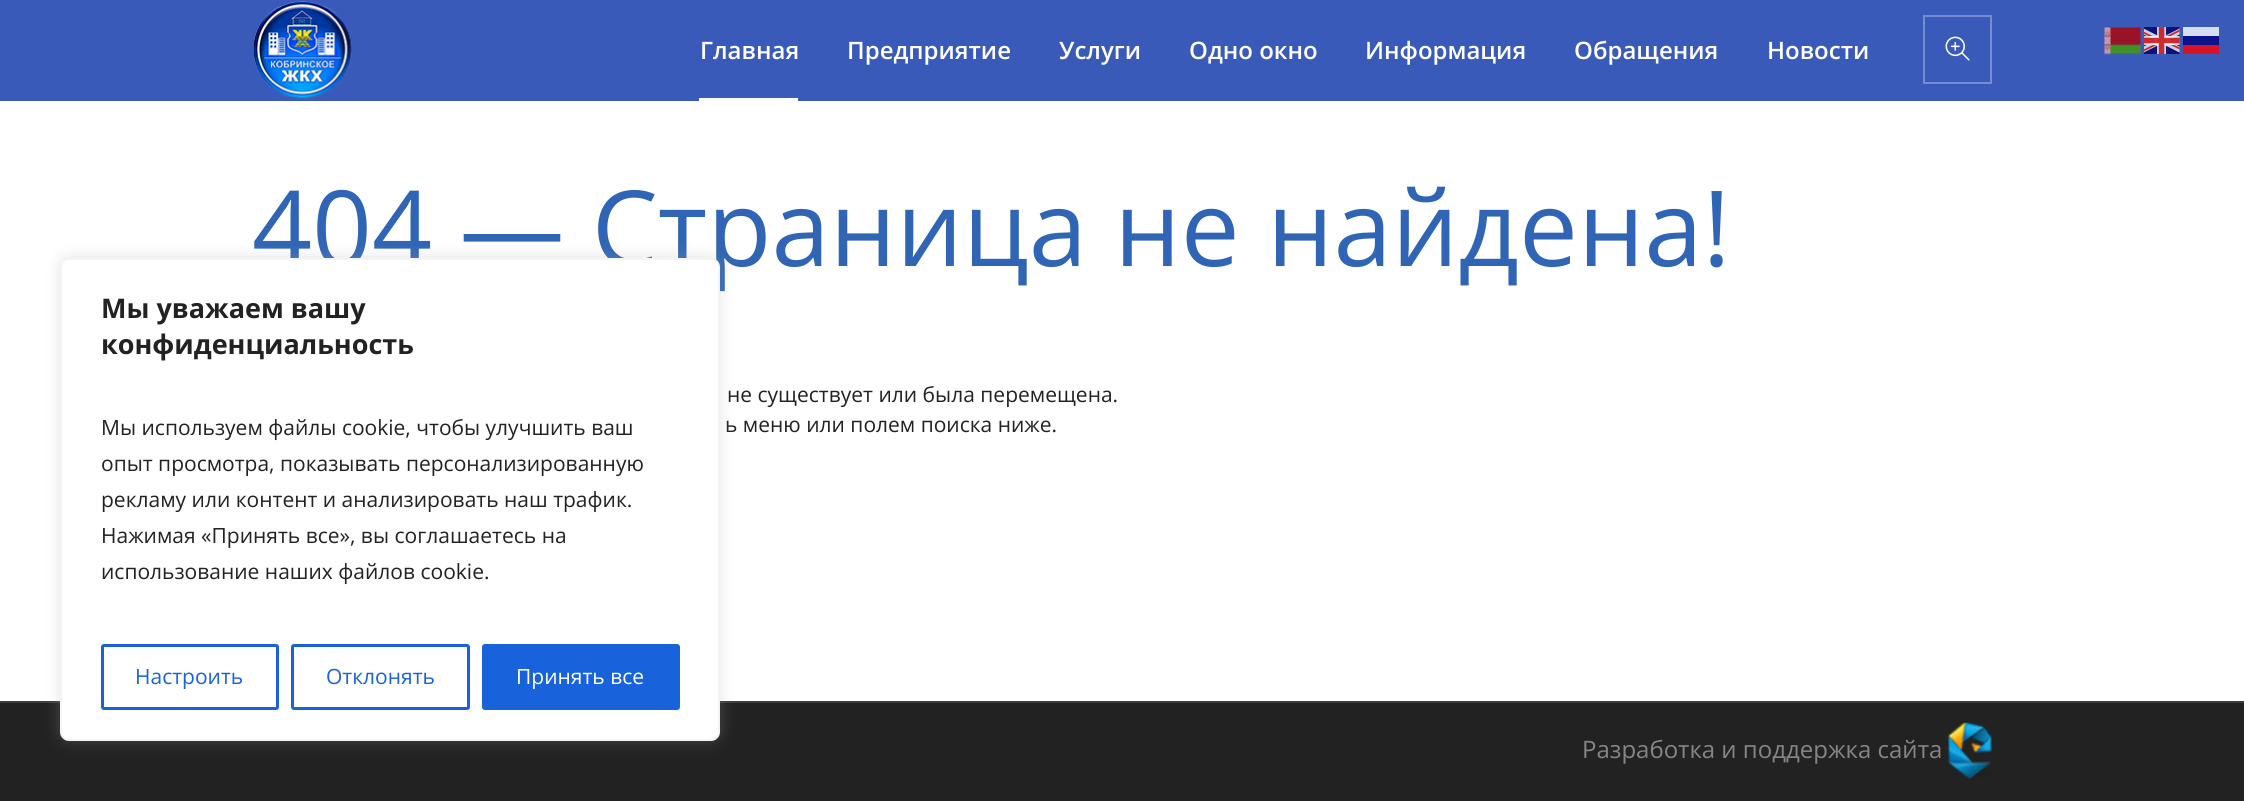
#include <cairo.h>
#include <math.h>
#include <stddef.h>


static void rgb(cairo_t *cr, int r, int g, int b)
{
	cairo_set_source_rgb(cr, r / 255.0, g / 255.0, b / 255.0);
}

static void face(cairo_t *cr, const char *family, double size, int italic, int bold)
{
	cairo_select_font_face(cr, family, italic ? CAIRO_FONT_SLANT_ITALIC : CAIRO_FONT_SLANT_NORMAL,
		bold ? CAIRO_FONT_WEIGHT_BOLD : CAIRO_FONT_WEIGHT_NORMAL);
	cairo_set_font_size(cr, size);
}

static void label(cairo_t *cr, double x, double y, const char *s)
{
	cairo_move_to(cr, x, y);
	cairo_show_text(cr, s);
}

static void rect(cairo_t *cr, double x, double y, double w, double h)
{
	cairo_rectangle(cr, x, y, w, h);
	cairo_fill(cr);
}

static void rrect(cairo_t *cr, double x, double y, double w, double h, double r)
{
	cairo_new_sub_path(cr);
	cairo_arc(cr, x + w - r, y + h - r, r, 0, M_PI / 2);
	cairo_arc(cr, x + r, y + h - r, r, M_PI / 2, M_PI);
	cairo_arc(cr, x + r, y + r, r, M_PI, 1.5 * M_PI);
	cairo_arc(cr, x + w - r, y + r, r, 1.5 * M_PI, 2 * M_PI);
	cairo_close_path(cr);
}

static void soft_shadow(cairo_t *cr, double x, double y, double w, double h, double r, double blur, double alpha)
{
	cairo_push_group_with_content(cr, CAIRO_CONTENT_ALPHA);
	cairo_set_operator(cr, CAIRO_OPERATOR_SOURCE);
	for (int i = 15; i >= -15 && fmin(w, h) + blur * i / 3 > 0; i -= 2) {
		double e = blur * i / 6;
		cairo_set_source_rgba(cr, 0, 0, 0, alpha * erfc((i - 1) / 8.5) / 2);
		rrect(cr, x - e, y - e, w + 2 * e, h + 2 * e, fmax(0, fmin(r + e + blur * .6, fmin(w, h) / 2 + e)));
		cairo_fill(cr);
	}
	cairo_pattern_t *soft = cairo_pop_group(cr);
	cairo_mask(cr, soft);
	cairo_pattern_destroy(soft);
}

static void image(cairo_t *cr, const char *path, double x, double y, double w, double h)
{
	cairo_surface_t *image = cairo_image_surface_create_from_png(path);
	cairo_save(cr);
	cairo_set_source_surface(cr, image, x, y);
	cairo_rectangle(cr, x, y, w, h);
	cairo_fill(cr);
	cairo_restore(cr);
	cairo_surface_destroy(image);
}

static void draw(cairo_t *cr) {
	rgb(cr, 255, 255, 255);
	cairo_paint(cr);
	rgb(cr, 58, 90, 185);
	rect(cr, 0, 0, 2244, 101);
	image(cr, "image0.png", 254, 1, 98, 98);
	face(cr, "Open Sans SemiBold", 24, 0, 0);
	rgb(cr, 255, 255, 255);
	label(cr, 700, 59, "Главная");
	label(cr, 847, 59, "Предприятие");
	label(cr, 1059, 59, "Услуги");
	label(cr, 1189, 59, "Одно окно");
	label(cr, 1365, 59, "Информация");
	label(cr, 1574, 59, "Обращения");
	label(cr, 1767, 59, "Новости");
	rect(cr, 699, 98, 99, 3);
	cairo_rectangle(cr, 1924, 16, 67, 67);
	rgb(cr, 117, 140, 206);
	cairo_stroke(cr);
	image(cr, "image1.png", 1945, 36, 25, 25);
	face(cr, "Open Sans", 105, 0, 0);
	rgb(cr, 48, 101, 181);
	label(cr, 252, 266, "404 — Страница не найдена!");
	face(cr, "Open Sans", 21, 0, 0);
	rgb(cr, 34, 34, 34);
	label(cr, 727, 402, "не существует или была перемещена.");
	label(cr, 725, 432, "ь меню или полем поиска ниже.");
	rect(cr, 0, 703, 2244, 98);
	rgb(cr, 61, 61, 61);
	rect(cr, 0, 701, 2244, 2);
	face(cr, "Open Sans", 24, 0, 0);
	rgb(cr, 133, 133, 133);
	label(cr, 1582, 758, "Разработка и поддержка сайта");
	image(cr, "image2.png", 1948, 722, 44, 58);
	image(cr, "image3.png", 2104, 27, 37, 28);
	image(cr, "image4.png", 2144, 27, 36, 27);
	rgb(cr, 216, 222, 241);
	rect(cr, 2183, 27, 36, 9);
	rgb(cr, 12, 19, 138);
	rect(cr, 2183, 36, 36, 9);
	rgb(cr, 215, 19, 38);
	rect(cr, 2183, 45, 36, 9);
	rgb(cr, 172, 171, 171);
	soft_shadow(cr, 60, 257, 660, 483, 9, 7.5, 0.3);
	rgb(cr, 255, 255, 255);
	rrect(cr, 61, 259, 658, 481, 8);
	cairo_fill_preserve(cr);
	rgb(cr, 244, 244, 244);
	cairo_stroke(cr);
	face(cr, "Open Sans", 27, 0, 1);
	rgb(cr, 34, 34, 34);
	label(cr, 101, 318, "Мы уважаем вашу");
	label(cr, 101, 354, "конфиденциальность");
	face(cr, "Open Sans", 21, 0, 0);
	label(cr, 101, 435, "Мы используем файлы cookie, чтобы улучшить ваш");
	label(cr, 101, 471, "опыт просмотра, показывать персонализированную");
	label(cr, 101, 507, "рекламу или контент и анализировать наш трафик.");
	label(cr, 101, 543, "Нажимая «Принять все», вы соглашаетесь на");
	label(cr, 101, 579, "использование наших файлов cookie.");
	rrect(cr, 102.5, 645.5, 175, 63, 1.5);
	rgb(cr, 24, 99, 220);
	cairo_set_line_width(cr, 3);
	cairo_stroke(cr);
	label(cr, 135, 684, "Настроить");
	rrect(cr, 292.5, 645.5, 176, 63, 1.5);
	cairo_stroke(cr);
	label(cr, 326, 684, "Отклонять");
	rrect(cr, 483.5, 645.5, 195, 63, 1.5);
	cairo_fill_preserve(cr);
	cairo_stroke(cr);
	rgb(cr, 255, 255, 255);
	label(cr, 516, 684, "Принять все");
}

int main(void) {
	cairo_surface_t *surface = cairo_image_surface_create(CAIRO_FORMAT_RGB24, 2244, 801);
	cairo_t *cr = cairo_create(surface);
	cairo_font_options_t *options = cairo_font_options_create();
	cairo_font_options_set_hint_metrics(options, CAIRO_HINT_METRICS_OFF);
	cairo_font_options_set_hint_style(options, CAIRO_HINT_STYLE_NONE);
	cairo_set_font_options(cr, options);
	cairo_set_miter_limit(cr, 4);
	draw(cr);
	cairo_surface_write_to_png(surface, "render.png");
	cairo_font_options_destroy(options);
	cairo_destroy(cr);
	cairo_surface_destroy(surface);
	return 0;
}
